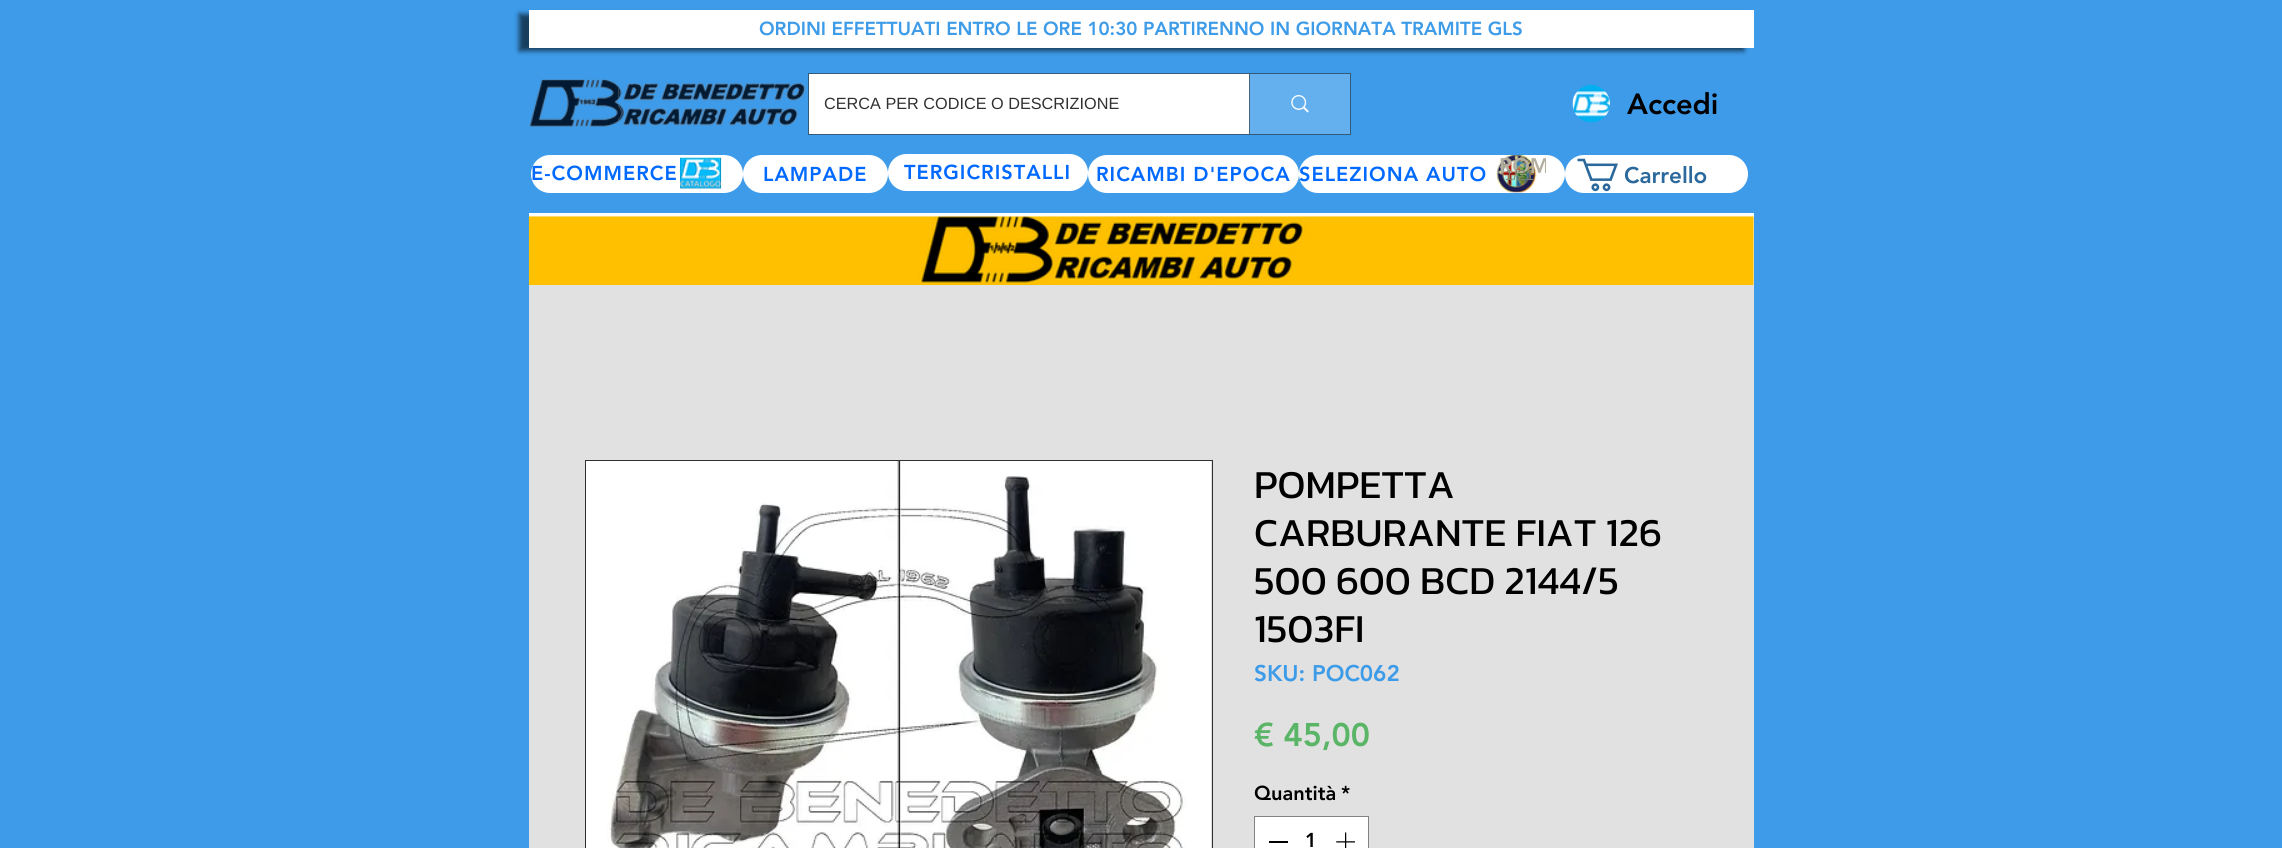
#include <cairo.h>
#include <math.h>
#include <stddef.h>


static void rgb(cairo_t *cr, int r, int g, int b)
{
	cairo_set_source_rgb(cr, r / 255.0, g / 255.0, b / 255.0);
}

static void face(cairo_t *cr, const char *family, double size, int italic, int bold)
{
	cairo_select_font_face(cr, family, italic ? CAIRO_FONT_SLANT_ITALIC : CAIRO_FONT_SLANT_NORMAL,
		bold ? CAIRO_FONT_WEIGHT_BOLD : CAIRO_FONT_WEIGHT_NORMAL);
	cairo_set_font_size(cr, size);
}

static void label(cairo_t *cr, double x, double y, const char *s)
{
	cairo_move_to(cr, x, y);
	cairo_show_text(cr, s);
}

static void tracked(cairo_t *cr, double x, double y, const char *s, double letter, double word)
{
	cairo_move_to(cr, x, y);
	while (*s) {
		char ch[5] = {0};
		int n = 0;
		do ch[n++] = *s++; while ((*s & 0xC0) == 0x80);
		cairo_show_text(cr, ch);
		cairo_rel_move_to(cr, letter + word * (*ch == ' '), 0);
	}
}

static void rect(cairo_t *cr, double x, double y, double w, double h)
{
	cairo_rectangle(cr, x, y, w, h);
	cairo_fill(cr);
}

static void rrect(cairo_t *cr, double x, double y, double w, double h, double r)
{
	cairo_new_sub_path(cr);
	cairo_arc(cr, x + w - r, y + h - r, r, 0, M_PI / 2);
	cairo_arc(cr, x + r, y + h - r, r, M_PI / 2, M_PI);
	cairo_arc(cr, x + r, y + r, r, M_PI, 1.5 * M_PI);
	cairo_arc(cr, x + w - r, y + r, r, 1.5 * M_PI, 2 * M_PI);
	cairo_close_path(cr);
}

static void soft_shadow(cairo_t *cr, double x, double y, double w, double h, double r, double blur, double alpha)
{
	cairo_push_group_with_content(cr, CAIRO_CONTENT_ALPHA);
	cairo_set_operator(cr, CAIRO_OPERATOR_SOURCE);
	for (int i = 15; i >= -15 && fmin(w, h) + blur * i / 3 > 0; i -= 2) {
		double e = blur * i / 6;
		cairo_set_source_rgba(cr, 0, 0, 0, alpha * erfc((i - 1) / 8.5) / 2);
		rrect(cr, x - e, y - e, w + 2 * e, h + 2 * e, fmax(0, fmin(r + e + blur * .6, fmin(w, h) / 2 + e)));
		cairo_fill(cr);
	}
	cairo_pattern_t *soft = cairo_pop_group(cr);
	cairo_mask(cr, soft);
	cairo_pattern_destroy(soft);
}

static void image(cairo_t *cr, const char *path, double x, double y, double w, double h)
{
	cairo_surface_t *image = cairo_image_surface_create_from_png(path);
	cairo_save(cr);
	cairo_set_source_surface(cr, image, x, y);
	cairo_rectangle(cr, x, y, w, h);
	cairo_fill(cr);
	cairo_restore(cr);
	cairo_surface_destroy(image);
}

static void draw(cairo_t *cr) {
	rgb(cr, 61, 155, 233);
	cairo_paint(cr);
	rgb(cr, 0, 0, 0);
	soft_shadow(cr, 519, 14, 1225, 37, 0, 2.5, 0.6);
	rgb(cr, 255, 255, 255);
	rect(cr, 529, 10, 1225, 38);
	face(cr, "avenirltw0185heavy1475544 Black", 18.75, 0, 0);
	rgb(cr, 61, 155, 232);
	label(cr, 759, 35, "ORDINI EFFETTUATI ENTRO LE ORE 10:30 PARTIRENNO IN GIORNATA TRAMITE GLS");
	image(cr, "image0.png", 529, 79, 95, 48);
	image(cr, "image1.png", 618, 82, 188, 44);
	cairo_rectangle(cr, 808.5, 73.5, 542, 61);
	rgb(cr, 53, 91, 122);
	cairo_set_line_width(cr, 1);
	cairo_stroke(cr);
	rgb(cr, 255, 255, 255);
	rect(cr, 809, 74, 440, 60);
	face(cr, "Liberation Sans", 16.25, 0, 0);
	rgb(cr, 48, 48, 48);
	label(cr, 824, 109, "CERCA PER CODICE O DESCRIZIONE");
	rgb(cr, 100, 175, 237);
	rect(cr, 1250, 74, 100, 60);
	rgb(cr, 69, 99, 124);
	rect(cr, 1249, 74, 1, 60);
	image(cr, "image2.png", 1291, 95, 18, 18);
	image(cr, "image3.png", 1572, 85, 38, 38);
	face(cr, "avenirltw0185heavy1475544 Black", 29, 0, 0);
	rgb(cr, 0, 0, 0);
	label(cr, 1627, 114, "Accedi");
	rgb(cr, 255, 255, 255);
	rrect(cr, 1565, 155, 183, 38, 19);
	cairo_fill(cr);
	image(cr, "image4.png", 1577, 158, 41, 34);
	face(cr, "avenirltw0185heavy1475544 Black", 22.5, 0, 0);
	rgb(cr, 43, 104, 156);
	label(cr, 1624, 183, "Carrello");
	rgb(cr, 255, 255, 255);
	rrect(cr, 531, 155, 212, 38, 19);
	cairo_fill(cr);
	face(cr, "avenirltw0185heavy1475544 Black", 20, 0, 0);
	rgb(cr, 0, 105, 255);
	tracked(cr, 531, 180, "E-COMMERCE", 1, 0);
	image(cr, "image5.png", 680, 157, 42, 32);
	rgb(cr, 255, 255, 255);
	rrect(cr, 743, 155, 145, 38, 19);
	cairo_fill(cr);
	rgb(cr, 0, 105, 255);
	tracked(cr, 763, 181, "LAMPADE", 1, 0);
	rgb(cr, 255, 255, 255);
	rrect(cr, 888, 154, 200, 37, 18.5);
	cairo_fill(cr);
	rgb(cr, 0, 105, 255);
	tracked(cr, 904, 179, "TERGICRISTALLI", 1, 0);
	rgb(cr, 255, 255, 255);
	rrect(cr, 1088, 155, 211, 38, 19);
	cairo_fill(cr);
	rgb(cr, 0, 105, 255);
	tracked(cr, 1096, 181, "RICAMBI D'EPOCA", 1, 0);
	rgb(cr, 255, 255, 255);
	rrect(cr, 1299, 155, 266, 38, 19);
	cairo_fill(cr);
	rgb(cr, 0, 105, 255);
	tracked(cr, 1299, 181, "SELEZIONA AUTO", 1, 0);
	image(cr, "image6.png", 1496, 155, 41, 38);
	cairo_save(cr);
	cairo_rectangle(cr, 1486, 155, 60, 38);
	cairo_clip(cr);
	face(cr, "avenirltw0185heavy1475544 Black", 21, 0, 0);
	rgb(cr, 179, 174, 158);
	label(cr, 1499, 173, "ROM");
	cairo_restore(cr);
	face(cr, "Liberation Sans", 15, 0, 0);
	rgb(cr, 129, 130, 105);
	label(cr, 1505, 180, "1/21");
	rgb(cr, 255, 255, 255);
	rect(cr, 529, 213, 1225, 72);
	image(cr, "image7.png", 528, 216, 1226, 69);
	rgb(cr, 225, 225, 225);
	rect(cr, 529, 285, 1225, 563);
	cairo_rectangle(cr, 585.5, 460.5, 627, 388);
	rgb(cr, 48, 48, 48);
	cairo_stroke(cr);
	image(cr, "image8.png", 586, 461, 625, 387);
	face(cr, "Kanit", 40, 0, 0);
	rgb(cr, 0, 0, 0);
	label(cr, 1254, 498, "POMPETTA");
	label(cr, 1254, 546, "CARBURANTE FIAT 126");
	label(cr, 1254, 594, "500 600 BCD 2144/5");
	label(cr, 1254, 642, "1503FI");
	face(cr, "avenirltw0185heavy1475544 Black", 22.5, 0, 0);
	rgb(cr, 61, 155, 232);
	label(cr, 1254, 681, "SKU: POC062");
	face(cr, "avenirltw0185heavy1475544 Black", 32.5, 0, 0);
	rgb(cr, 91, 181, 103);
	label(cr, 1254, 746, "€ 45,00");
	face(cr, "avenirltw0185heavy1475544 Black", 20, 0, 0);
	rgb(cr, 0, 0, 0);
	label(cr, 1254, 800, "Quantità");
	label(cr, 1341, 800, "*");
	rgb(cr, 255, 255, 255);
	cairo_rectangle(cr, 1254.5, 816.5, 114, 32);
	cairo_fill_preserve(cr);
	rgb(cr, 131, 131, 131);
	cairo_stroke(cr);
	rgb(cr, 0, 0, 0);
	rect(cr, 1269, 841, 19, 2);
	label(cr, 1305, 847, "1");
	image(cr, "image9.png", 1336, 832, 19, 16);
}

int main(void) {
	cairo_surface_t *surface = cairo_image_surface_create(CAIRO_FORMAT_RGB24, 2282, 848);
	cairo_t *cr = cairo_create(surface);
	cairo_font_options_t *options = cairo_font_options_create();
	cairo_font_options_set_hint_metrics(options, CAIRO_HINT_METRICS_OFF);
	cairo_font_options_set_hint_style(options, CAIRO_HINT_STYLE_NONE);
	cairo_set_font_options(cr, options);
	cairo_set_miter_limit(cr, 4);
	draw(cr);
	cairo_surface_write_to_png(surface, "render.png");
	cairo_font_options_destroy(options);
	cairo_destroy(cr);
	cairo_surface_destroy(surface);
	return 0;
}
